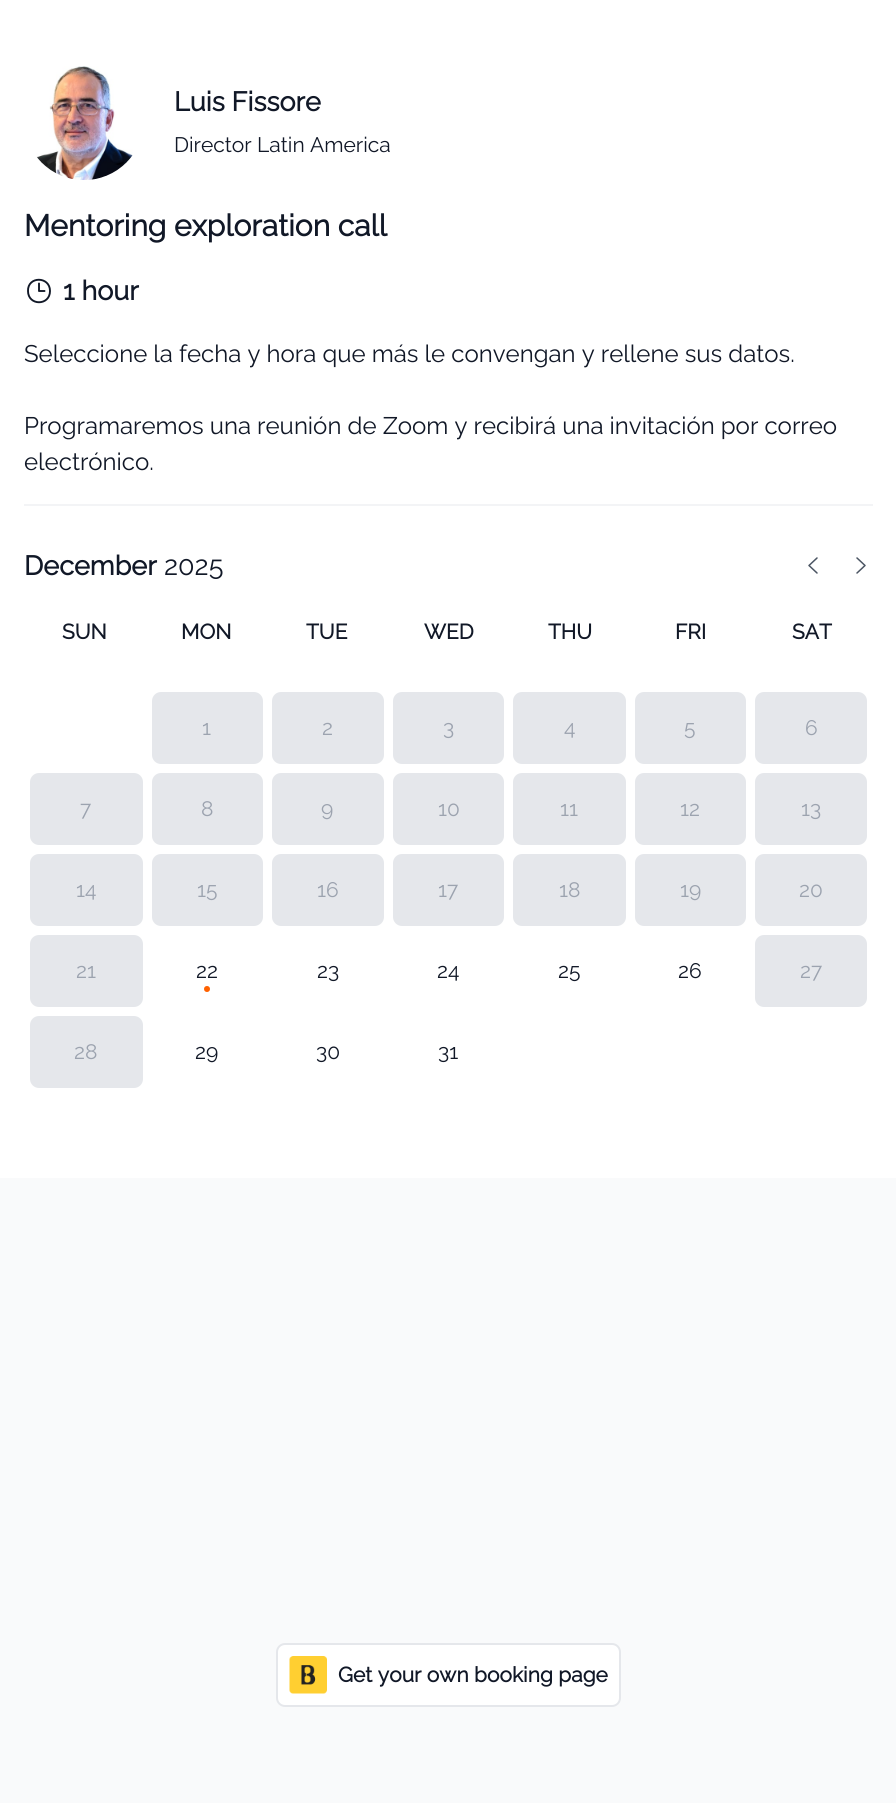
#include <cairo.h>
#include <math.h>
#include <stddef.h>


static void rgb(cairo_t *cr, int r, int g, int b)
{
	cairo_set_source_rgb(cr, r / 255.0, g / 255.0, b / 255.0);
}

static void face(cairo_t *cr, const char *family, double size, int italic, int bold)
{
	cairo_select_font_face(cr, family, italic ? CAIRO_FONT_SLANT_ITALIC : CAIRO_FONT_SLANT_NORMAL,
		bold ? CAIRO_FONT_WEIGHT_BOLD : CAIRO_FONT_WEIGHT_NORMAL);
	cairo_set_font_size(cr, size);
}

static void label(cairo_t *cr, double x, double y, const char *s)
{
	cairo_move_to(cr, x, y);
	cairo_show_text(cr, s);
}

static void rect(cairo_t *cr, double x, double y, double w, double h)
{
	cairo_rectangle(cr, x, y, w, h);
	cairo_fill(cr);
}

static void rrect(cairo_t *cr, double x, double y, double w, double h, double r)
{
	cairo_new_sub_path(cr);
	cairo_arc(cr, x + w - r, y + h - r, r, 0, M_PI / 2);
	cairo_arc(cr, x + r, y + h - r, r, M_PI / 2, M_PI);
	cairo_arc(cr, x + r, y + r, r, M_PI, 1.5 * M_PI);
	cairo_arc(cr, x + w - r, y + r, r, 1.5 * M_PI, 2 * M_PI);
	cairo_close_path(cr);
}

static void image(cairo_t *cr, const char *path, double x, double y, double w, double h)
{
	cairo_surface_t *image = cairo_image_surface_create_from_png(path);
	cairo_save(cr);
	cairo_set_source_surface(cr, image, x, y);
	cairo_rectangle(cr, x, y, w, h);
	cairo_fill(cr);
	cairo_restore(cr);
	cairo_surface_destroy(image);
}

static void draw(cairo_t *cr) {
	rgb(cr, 249, 250, 251);
	cairo_paint(cr);
	rgb(cr, 255, 255, 255);
	rect(cr, 0, 0, 896, 1178);
	image(cr, "image0.png", 36, 66, 97, 114);
	face(cr, "Raleway", 27, 0, 1);
	rgb(cr, 17, 24, 39);
	label(cr, 174, 111, "Luis Fissore");
	face(cr, "Raleway Thin", 21, 0, 0);
	label(cr, 174, 152, "Director Latin America");
	face(cr, "Raleway", 30, 0, 1);
	label(cr, 24, 236, "Mentoring exploration call");
	cairo_new_path(cr);
	cairo_move_to(cr, 39, 283.5);
	cairo_line_to(cr, 39, 291);
	cairo_line_to(cr, 44.5, 291);
	cairo_move_to(cr, 50, 291);
	cairo_curve_to(cr, 50, 306, 28, 306, 28, 291);
	cairo_curve_to(cr, 27.5, 276, 50, 276, 50, 291);
	cairo_close_path(cr);
	cairo_set_line_width(cr, 1.9);
	cairo_set_line_cap(cr, CAIRO_LINE_CAP_ROUND);
	cairo_set_line_join(cr, CAIRO_LINE_JOIN_ROUND);
	cairo_stroke(cr);
	face(cr, "Raleway", 27, 0, 1);
	label(cr, 63, 300, "1 hour");
	face(cr, "Raleway Thin", 24, 0, 0);
	label(cr, 24, 362, "Seleccione la fecha y hora que más le convengan y rellene sus datos.");
	label(cr, 24, 434, "Programaremos una reunión de Zoom y recibirá una invitación por correo");
	label(cr, 24, 470, "electrónico.");
	rgb(cr, 243, 244, 246);
	rect(cr, 24, 504, 849, 2);
	face(cr, "Raleway", 27, 0, 1);
	rgb(cr, 17, 24, 39);
	label(cr, 24, 575, "December");
	face(cr, "Raleway Thin", 27, 0, 0);
	label(cr, 164, 575, "2025");
	cairo_new_path(cr);
	cairo_move_to(cr, 817, 573);
	cairo_line_to(cr, 809, 565.5);
	cairo_line_to(cr, 817, 558);
	cairo_move_to(cr, 857, 558);
	cairo_line_to(cr, 865, 565.5);
	cairo_line_to(cr, 857, 573);
	rgb(cr, 75, 85, 99);
	cairo_set_line_width(cr, 1.5);
	cairo_stroke(cr);
	face(cr, "Raleway", 21, 0, 1);
	rgb(cr, 17, 24, 39);
	label(cr, 62, 639, "SUN");
	label(cr, 181, 639, "MON");
	label(cr, 306, 639, "TUE");
	label(cr, 424, 639, "WED");
	label(cr, 548, 639, "THU");
	label(cr, 675, 639, "FRI");
	label(cr, 792, 639, "SAT");
	rgb(cr, 229, 231, 235);
	rrect(cr, 152, 692, 111, 72, 9);
	cairo_fill(cr);
	face(cr, "Raleway Thin", 21, 0, 0);
	rgb(cr, 156, 163, 175);
	label(cr, 202, 735, "1");
	rgb(cr, 229, 231, 235);
	rrect(cr, 272, 692, 112, 72, 9);
	cairo_fill(cr);
	rgb(cr, 156, 163, 175);
	label(cr, 322, 735, "2");
	rgb(cr, 229, 231, 235);
	rrect(cr, 393, 692, 111, 72, 9);
	cairo_fill(cr);
	rgb(cr, 156, 163, 175);
	label(cr, 443, 735, "3");
	rgb(cr, 229, 231, 235);
	rrect(cr, 513, 692, 113, 72, 9);
	cairo_fill(cr);
	rgb(cr, 156, 163, 175);
	label(cr, 564, 735, "4");
	rgb(cr, 229, 231, 235);
	rrect(cr, 635, 692, 111, 72, 9);
	cairo_fill(cr);
	rgb(cr, 156, 163, 175);
	label(cr, 684, 735, "5");
	rgb(cr, 229, 231, 235);
	rrect(cr, 755, 692, 112, 72, 9);
	cairo_fill(cr);
	rgb(cr, 156, 163, 175);
	label(cr, 805, 735, "6");
	rgb(cr, 229, 231, 235);
	rrect(cr, 30, 773, 113, 72, 9);
	cairo_fill(cr);
	rgb(cr, 156, 163, 175);
	label(cr, 80, 816, "7");
	rgb(cr, 229, 231, 235);
	rrect(cr, 152, 773, 111, 72, 9);
	cairo_fill(cr);
	rgb(cr, 156, 163, 175);
	label(cr, 201, 816, "8");
	rgb(cr, 229, 231, 235);
	rrect(cr, 272, 773, 112, 72, 9);
	cairo_fill(cr);
	rgb(cr, 156, 163, 175);
	label(cr, 321, 816, "9");
	rgb(cr, 229, 231, 235);
	rrect(cr, 393, 773, 111, 72, 9);
	cairo_fill(cr);
	rgb(cr, 156, 163, 175);
	label(cr, 438, 816, "10");
	rgb(cr, 229, 231, 235);
	rrect(cr, 513, 773, 113, 72, 9);
	cairo_fill(cr);
	rgb(cr, 156, 163, 175);
	label(cr, 560, 816, "11");
	rgb(cr, 229, 231, 235);
	rrect(cr, 635, 773, 111, 72, 9);
	cairo_fill(cr);
	rgb(cr, 156, 163, 175);
	label(cr, 680, 816, "12");
	rgb(cr, 229, 231, 235);
	rrect(cr, 755, 773, 112, 72, 9);
	cairo_fill(cr);
	rgb(cr, 156, 163, 175);
	label(cr, 801, 816, "13");
	rgb(cr, 229, 231, 235);
	rrect(cr, 30, 854, 113, 72, 9);
	cairo_fill(cr);
	rgb(cr, 156, 163, 175);
	label(cr, 76, 897, "14");
	rgb(cr, 229, 231, 235);
	rrect(cr, 152, 854, 111, 72, 9);
	cairo_fill(cr);
	rgb(cr, 156, 163, 175);
	label(cr, 197, 897, "15");
	rgb(cr, 229, 231, 235);
	rrect(cr, 272, 854, 112, 72, 9);
	cairo_fill(cr);
	rgb(cr, 156, 163, 175);
	label(cr, 317, 897, "16");
	rgb(cr, 229, 231, 235);
	rrect(cr, 393, 854, 111, 72, 9);
	cairo_fill(cr);
	rgb(cr, 156, 163, 175);
	label(cr, 438, 897, "17");
	rgb(cr, 229, 231, 235);
	rrect(cr, 513, 854, 113, 72, 9);
	cairo_fill(cr);
	rgb(cr, 156, 163, 175);
	label(cr, 559, 897, "18");
	rgb(cr, 229, 231, 235);
	rrect(cr, 635, 854, 111, 72, 9);
	cairo_fill(cr);
	rgb(cr, 156, 163, 175);
	label(cr, 680, 897, "19");
	rgb(cr, 229, 231, 235);
	rrect(cr, 755, 854, 112, 72, 9);
	cairo_fill(cr);
	rgb(cr, 156, 163, 175);
	label(cr, 799, 897, "20");
	rgb(cr, 229, 231, 235);
	rrect(cr, 30, 935, 113, 72, 9);
	cairo_fill(cr);
	rgb(cr, 156, 163, 175);
	label(cr, 76, 978, "21");
	rgb(cr, 17, 24, 39);
	label(cr, 196, 978, "22");
	rgb(cr, 255, 97, 0);
	cairo_new_path(cr);
	cairo_arc(cr, 207, 989, 3, 0, 2 * M_PI);
	cairo_fill(cr);
	rgb(cr, 17, 24, 39);
	label(cr, 317, 978, "23");
	label(cr, 437, 978, "24");
	label(cr, 558, 978, "25");
	label(cr, 678, 978, "26");
	rgb(cr, 229, 231, 235);
	rrect(cr, 755, 935, 112, 72, 9);
	cairo_fill(cr);
	rgb(cr, 156, 163, 175);
	label(cr, 800, 978, "27");
	rgb(cr, 229, 231, 235);
	rrect(cr, 30, 1016, 113, 72, 9);
	cairo_fill(cr);
	rgb(cr, 156, 163, 175);
	label(cr, 74, 1059, "28");
	rgb(cr, 17, 24, 39);
	label(cr, 195, 1059, "29");
	label(cr, 316, 1059, "30");
	label(cr, 438, 1059, "31");
	rgb(cr, 255, 255, 255);
	rrect(cr, 277, 1644, 343, 62, 8);
	cairo_fill_preserve(cr);
	rgb(cr, 229, 231, 235);
	cairo_set_line_width(cr, 2);
	cairo_set_line_cap(cr, CAIRO_LINE_CAP_BUTT);
	cairo_set_line_join(cr, CAIRO_LINE_JOIN_MITER);
	cairo_stroke(cr);
	image(cr, "image1.png", 289, 1656, 38, 38);
	face(cr, "Raleway", 21, 0, 1);
	rgb(cr, 17, 24, 39);
	label(cr, 338, 1682, "Get your own booking page");
}

int main(void) {
	cairo_surface_t *surface = cairo_image_surface_create(CAIRO_FORMAT_RGB24, 896, 1803);
	cairo_t *cr = cairo_create(surface);
	cairo_font_options_t *options = cairo_font_options_create();
	cairo_font_options_set_hint_metrics(options, CAIRO_HINT_METRICS_OFF);
	cairo_font_options_set_hint_style(options, CAIRO_HINT_STYLE_NONE);
	cairo_set_font_options(cr, options);
	cairo_set_miter_limit(cr, 4);
	draw(cr);
	cairo_surface_write_to_png(surface, "render.png");
	cairo_font_options_destroy(options);
	cairo_destroy(cr);
	cairo_surface_destroy(surface);
	return 0;
}
